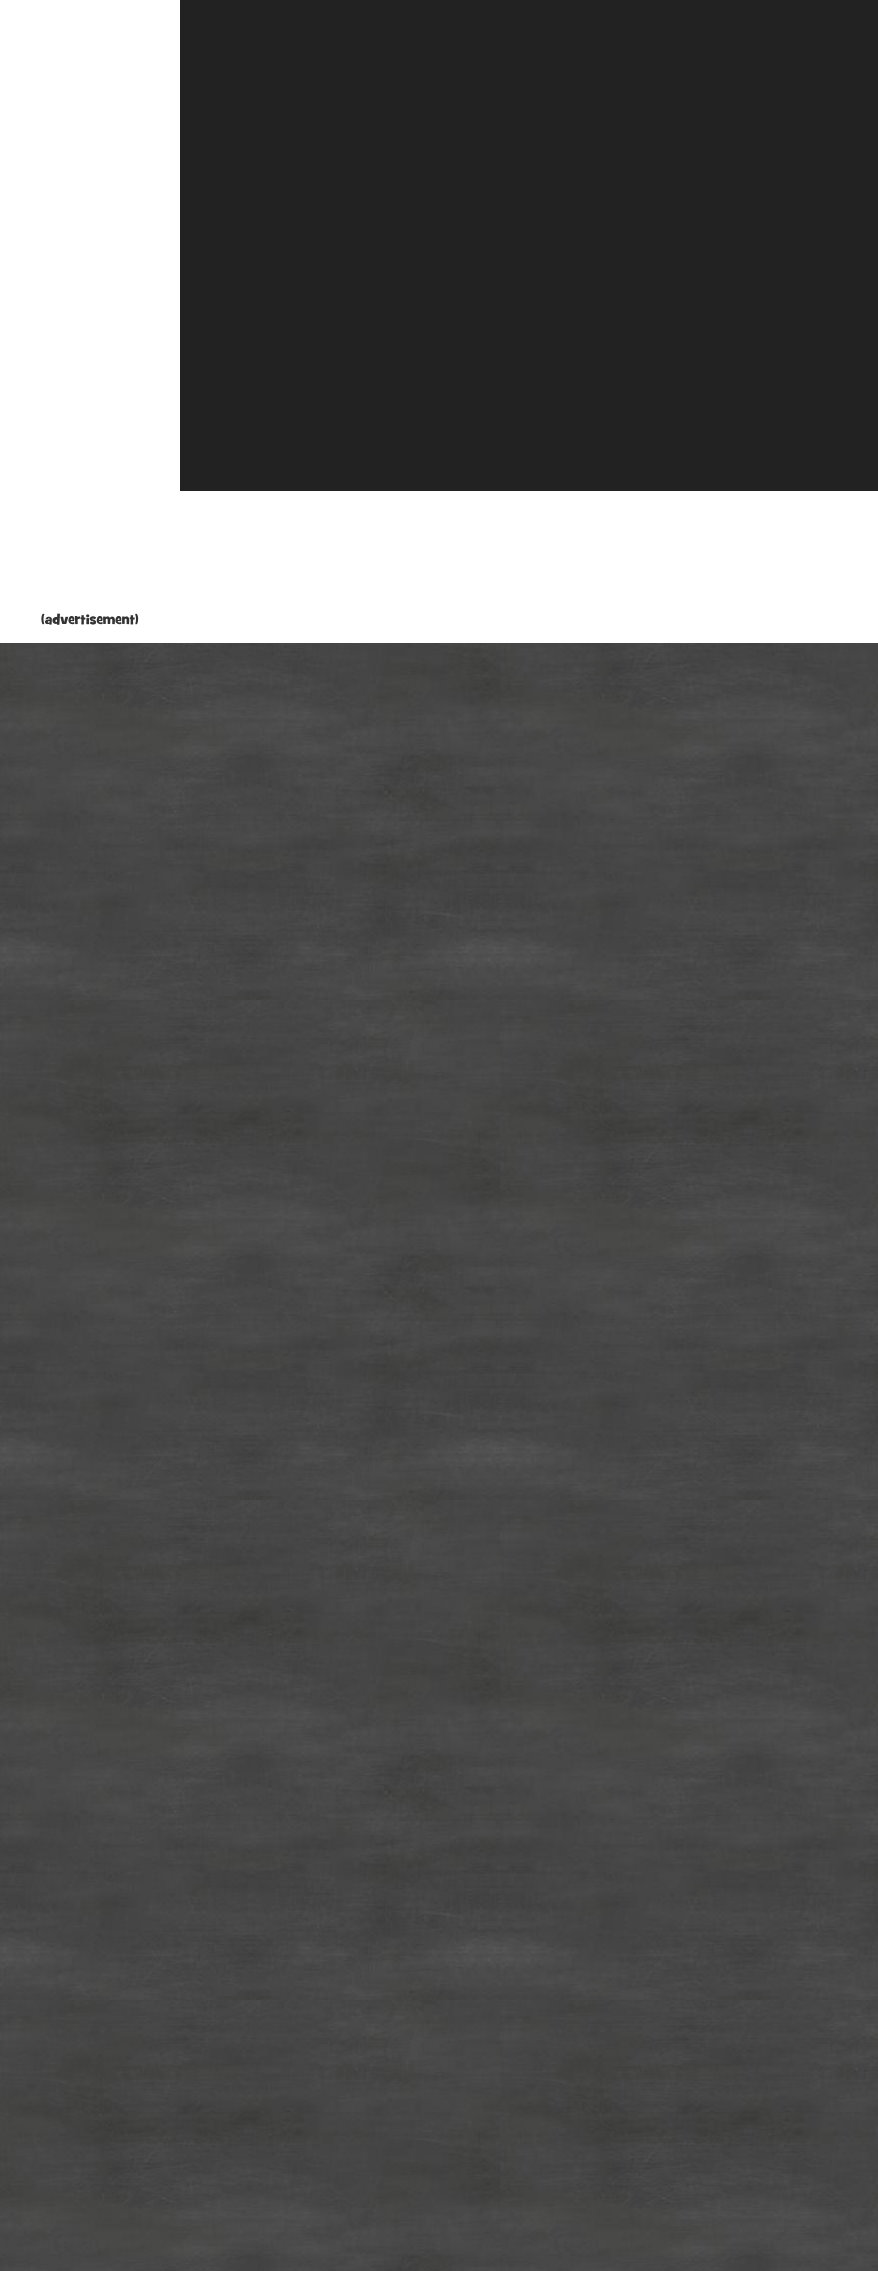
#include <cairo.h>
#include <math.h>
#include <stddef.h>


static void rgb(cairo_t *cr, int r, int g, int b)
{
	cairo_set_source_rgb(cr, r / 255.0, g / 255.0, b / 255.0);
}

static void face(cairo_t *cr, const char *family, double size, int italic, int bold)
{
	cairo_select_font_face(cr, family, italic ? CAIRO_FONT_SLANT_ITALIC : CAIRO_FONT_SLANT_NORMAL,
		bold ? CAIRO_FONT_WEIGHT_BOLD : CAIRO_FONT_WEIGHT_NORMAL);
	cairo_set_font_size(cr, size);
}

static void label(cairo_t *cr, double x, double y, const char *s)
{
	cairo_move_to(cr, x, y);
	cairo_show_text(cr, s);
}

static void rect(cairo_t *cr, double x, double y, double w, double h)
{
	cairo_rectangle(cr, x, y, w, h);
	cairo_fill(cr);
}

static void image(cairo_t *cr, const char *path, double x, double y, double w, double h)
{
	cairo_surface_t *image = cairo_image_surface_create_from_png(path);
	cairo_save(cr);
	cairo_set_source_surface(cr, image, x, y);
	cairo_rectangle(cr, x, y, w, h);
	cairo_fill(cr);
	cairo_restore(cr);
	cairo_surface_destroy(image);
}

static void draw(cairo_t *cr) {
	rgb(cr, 255, 255, 255);
	cairo_paint(cr);
	image(cr, "image0.png", 0, 643, 878, 1628);
	rgb(cr, 34, 34, 34);
	rect(cr, 180, 0, 698, 491);
	face(cr, "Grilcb", 14, 0, 0);
	rgb(cr, 51, 51, 51);
	label(cr, 41, 624, "(advertisement)");
}

int main(void) {
	cairo_surface_t *surface = cairo_image_surface_create(CAIRO_FORMAT_RGB24, 878, 2271);
	cairo_t *cr = cairo_create(surface);
	cairo_font_options_t *options = cairo_font_options_create();
	cairo_font_options_set_hint_metrics(options, CAIRO_HINT_METRICS_OFF);
	cairo_font_options_set_hint_style(options, CAIRO_HINT_STYLE_NONE);
	cairo_set_font_options(cr, options);
	cairo_set_miter_limit(cr, 4);
	draw(cr);
	cairo_surface_write_to_png(surface, "render.png");
	cairo_font_options_destroy(options);
	cairo_destroy(cr);
	cairo_surface_destroy(surface);
	return 0;
}
